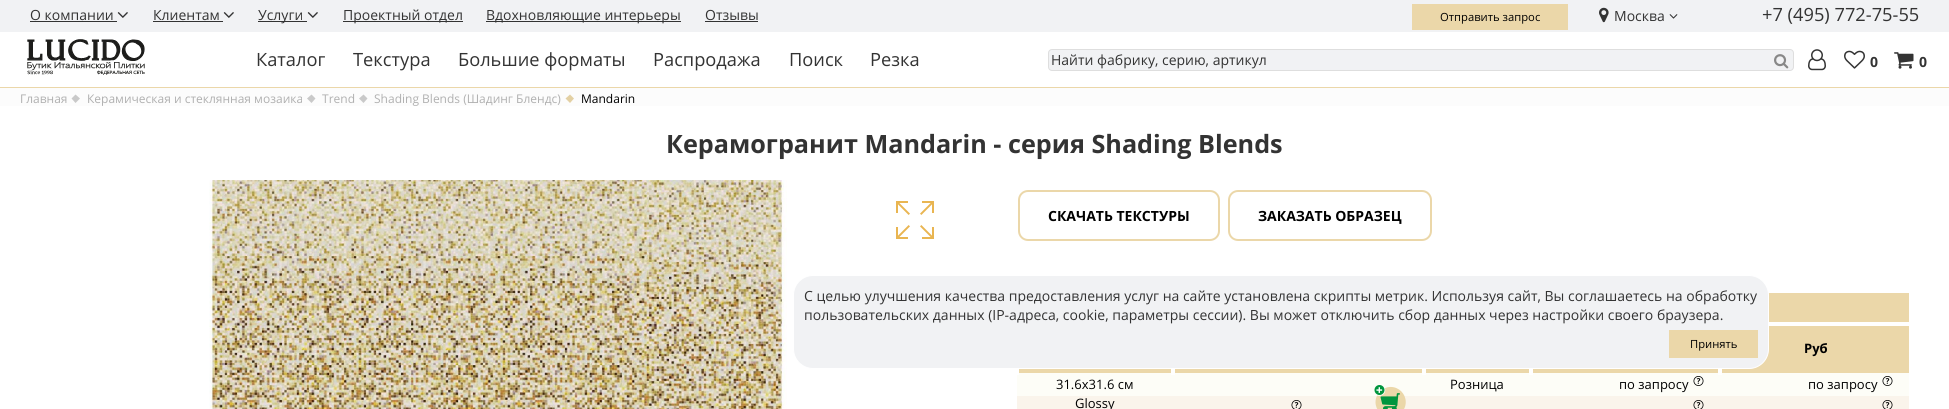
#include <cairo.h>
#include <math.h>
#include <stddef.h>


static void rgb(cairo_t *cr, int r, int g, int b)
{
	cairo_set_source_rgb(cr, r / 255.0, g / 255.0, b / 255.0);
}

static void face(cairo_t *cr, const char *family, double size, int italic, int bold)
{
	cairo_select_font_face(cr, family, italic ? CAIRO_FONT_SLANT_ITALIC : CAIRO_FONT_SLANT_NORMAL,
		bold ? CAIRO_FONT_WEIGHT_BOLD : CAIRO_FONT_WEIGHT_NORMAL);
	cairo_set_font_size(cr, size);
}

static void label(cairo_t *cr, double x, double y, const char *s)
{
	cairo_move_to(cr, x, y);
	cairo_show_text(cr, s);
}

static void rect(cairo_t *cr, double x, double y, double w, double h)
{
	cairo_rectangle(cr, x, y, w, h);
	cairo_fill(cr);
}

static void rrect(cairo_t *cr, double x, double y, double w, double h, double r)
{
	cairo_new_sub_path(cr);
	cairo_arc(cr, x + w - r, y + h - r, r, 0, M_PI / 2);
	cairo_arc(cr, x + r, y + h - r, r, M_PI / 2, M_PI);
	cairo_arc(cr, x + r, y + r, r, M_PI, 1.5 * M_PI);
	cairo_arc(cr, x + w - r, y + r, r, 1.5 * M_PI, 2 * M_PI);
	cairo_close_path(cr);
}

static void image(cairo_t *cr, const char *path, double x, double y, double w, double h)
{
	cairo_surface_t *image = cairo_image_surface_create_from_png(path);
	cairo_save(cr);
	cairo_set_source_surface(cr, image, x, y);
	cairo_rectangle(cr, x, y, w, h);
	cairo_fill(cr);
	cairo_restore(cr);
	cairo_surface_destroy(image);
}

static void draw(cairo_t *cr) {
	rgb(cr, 255, 255, 255);
	cairo_paint(cr);
	rgb(cr, 235, 215, 169);
	rect(cr, 0, 87, 1949, 1);
	rgb(cr, 241, 242, 244);
	rect(cr, 0, 0, 1949, 32);
	face(cr, "Open Sans", 14, 0, 0);
	rgb(cr, 51, 51, 51);
	label(cr, 30, 20, "О компании");
	rect(cr, 30, 21, 87, 1);
	image(cr, "image0.png", 117, 12, 11, 6);
	label(cr, 153, 20, "Клиентам");
	rect(cr, 153, 21, 70, 1);
	image(cr, "image0.png", 223, 12, 11, 6);
	rect(cr, 258, 21, 49, 1);
	label(cr, 258, 20, "Услуги");
	image(cr, "image0.png", 307, 12, 11, 6);
	rect(cr, 343, 21, 120, 1);
	label(cr, 343, 20, "Проектный отдел");
	rect(cr, 486, 21, 195, 1);
	label(cr, 486, 20, "Вдохновляющие интерьеры");
	label(cr, 705, 20, "Отзывы");
	rect(cr, 705, 21, 53, 1);
	rgb(cr, 235, 215, 169);
	rect(cr, 1412, 4, 156, 26);
	face(cr, "Open Sans", 11.25, 0, 0);
	rgb(cr, 0, 0, 0);
	label(cr, 1440, 21, "Отправить запрос");
	image(cr, "image1.png", 1599, 7, 10, 16);
	face(cr, "Open Sans", 14, 0, 0);
	rgb(cr, 51, 51, 51);
	label(cr, 1614, 21, "Москва");
	image(cr, "image2.png", 1669, 14, 9, 5);
	face(cr, "Open Sans", 18.25, 0, 0);
	label(cr, 1762, 21, "+7 (495) 772-75-55");
	image(cr, "image3.png", 27, 39, 118, 36);
	label(cr, 256, 66, "Каталог");
	label(cr, 353, 66, "Текстура");
	label(cr, 458, 66, "Большие форматы");
	label(cr, 653, 66, "Распродажа");
	label(cr, 789, 66, "Поиск");
	label(cr, 870, 66, "Резка");
	rgb(cr, 241, 242, 244);
	rrect(cr, 1048.5, 49.5, 745, 21, 3.5);
	cairo_fill_preserve(cr);
	rgb(cr, 222, 222, 222);
	cairo_set_line_width(cr, 1);
	cairo_stroke(cr);
	face(cr, "Open Sans", 14, 0, 0);
	rgb(cr, 51, 51, 51);
	label(cr, 1051, 65, "Найти фабрику, серию, артикул");
	image(cr, "image4.png", 1774, 54, 15, 15);
	image(cr, "image5.png", 1808, 49, 18, 22);
	image(cr, "image6.png", 1844, 50, 21, 19);
	face(cr, "Open Sans", 14, 0, 1);
	label(cr, 1870, 67, "0");
	image(cr, "image7.png", 1894, 52, 20, 17);
	label(cr, 1919, 67, "0");
	rgb(cr, 252, 252, 252);
	rect(cr, 0, 88, 1949, 18);
	face(cr, "Open Sans", 12, 0, 0);
	rgb(cr, 176, 176, 176);
	label(cr, 20, 103, "Главная");
	rgb(cr, 201, 201, 201);
	cairo_new_path(cr);
	cairo_move_to(cr, 75.5, 94.5);
	cairo_line_to(cr, 80, 98.5);
	cairo_line_to(cr, 75.5, 103);
	cairo_line_to(cr, 71.5, 98.5);
	cairo_close_path(cr);
	cairo_fill(cr);
	rgb(cr, 176, 176, 176);
	label(cr, 87, 103, "Керамическая и стеклянная мозаика");
	rgb(cr, 201, 201, 201);
	cairo_new_path(cr);
	cairo_move_to(cr, 311.5, 94.5);
	cairo_line_to(cr, 315.5, 98.5);
	cairo_line_to(cr, 311.5, 103);
	cairo_line_to(cr, 307, 98.5);
	cairo_close_path(cr);
	cairo_fill(cr);
	rgb(cr, 176, 176, 176);
	label(cr, 322, 103, "Trend");
	rgb(cr, 201, 201, 201);
	cairo_new_path(cr);
	cairo_move_to(cr, 363.5, 94.5);
	cairo_line_to(cr, 367.5, 98.5);
	cairo_line_to(cr, 363.5, 103);
	cairo_line_to(cr, 359, 98.5);
	cairo_close_path(cr);
	cairo_fill(cr);
	rgb(cr, 176, 176, 176);
	label(cr, 374, 103, "Shading Blends (Шадинг Блендс)");
	rgb(cr, 227, 208, 163);
	cairo_new_path(cr);
	cairo_move_to(cr, 570, 94.5);
	cairo_line_to(cr, 574, 98.5);
	cairo_line_to(cr, 570, 103);
	cairo_line_to(cr, 565.5, 98.5);
	cairo_close_path(cr);
	cairo_fill(cr);
	rgb(cr, 0, 0, 0);
	label(cr, 581, 103, "Mandarin");
	face(cr, "Open Sans", 25.2, 0, 1);
	rgb(cr, 51, 51, 51);
	label(cr, 666, 153, "Керамогранит Mandarin - серия Shading Blends");
	image(cr, "image8.png", 209, 180, 578, 229);
	image(cr, "image9.png", 896, 201, 38, 38);
	rrect(cr, 1019, 191, 200, 49, 9);
	rgb(cr, 235, 215, 169);
	cairo_set_line_width(cr, 2);
	cairo_stroke(cr);
	face(cr, "Open Sans", 14, 0, 1);
	rgb(cr, 0, 0, 0);
	label(cr, 1048, 221, "СКАЧАТЬ ТЕКСТУРЫ");
	rrect(cr, 1229, 191, 202, 49, 9);
	rgb(cr, 235, 215, 169);
	cairo_stroke(cr);
	rgb(cr, 0, 0, 0);
	label(cr, 1258, 221, "ЗАКАЗАТЬ ОБРАЗЕЦ");
	rgb(cr, 235, 215, 169);
	rect(cr, 1768, 293, 141, 29);
	rgb(cr, 253, 253, 247);
	rect(cr, 1017, 373, 892, 23);
	rgb(cr, 255, 255, 255);
	rect(cr, 1017, 369, 2, 6);
	rgb(cr, 235, 215, 169);
	rect(cr, 1019, 349, 890, 24);
	rgb(cr, 255, 255, 255);
	rect(cr, 1171, 369, 4, 6);
	rgb(cr, 235, 215, 169);
	rect(cr, 1769, 326, 140, 23);
	rgb(cr, 255, 255, 255);
	rect(cr, 1718, 369, 4, 6);
	face(cr, "Open Sans", 13, 0, 1);
	rgb(cr, 0, 0, 0);
	label(cr, 1804, 353, "Руб");
	rgb(cr, 255, 255, 255);
	rect(cr, 1529, 369, 4, 6);
	rect(cr, 1422, 369, 4, 6);
	face(cr, "Open Sans", 13, 0, 0);
	rgb(cr, 0, 0, 0);
	label(cr, 1056, 389, "31.6x31.6 см");
	rgb(cr, 250, 244, 235);
	rect(cr, 1017, 396, 892, 13);
	rgb(cr, 0, 0, 0);
	label(cr, 1075, 408, "Glossy");
	image(cr, "image10.png", 1374, 385, 32, 24);
	label(cr, 1450, 389, "Розница");
	label(cr, 1619, 389, "по запросу");
	image(cr, "image11.png", 1693, 376, 11, 10);
	label(cr, 1808, 389, "по запросу");
	image(cr, "image11.png", 1882, 376, 11, 10);
	image(cr, "image12.png", 1291, 400, 11, 9);
	image(cr, "image12.png", 1693, 400, 11, 9);
	image(cr, "image12.png", 1882, 400, 11, 9);
	rgb(cr, 241, 242, 244);
	rrect(cr, 793.5, 275.5, 975, 93, 19.5);
	cairo_fill_preserve(cr);
	rgb(cr, 255, 255, 255);
	cairo_set_line_width(cr, 1);
	cairo_stroke(cr);
	face(cr, "Open Sans", 14, 0, 0);
	rgb(cr, 51, 51, 51);
	label(cr, 804, 301, "С целью улучшения качества предоставления услуг на сайте установлена скрипты метрик. Используя сайт, Вы соглашаетесь на обработку");
	label(cr, 804, 320, "пользовательских данных (IP-адреса, cookie, параметры сессии). Вы может отключить сбор данных через настройки своего браузера.");
	rgb(cr, 235, 215, 169);
	rect(cr, 1669, 330, 89, 28);
	face(cr, "Open Sans", 11.25, 0, 0);
	rgb(cr, 0, 0, 0);
	label(cr, 1690, 348, "Принять");
}

int main(void) {
	cairo_surface_t *surface = cairo_image_surface_create(CAIRO_FORMAT_RGB24, 1949, 409);
	cairo_t *cr = cairo_create(surface);
	cairo_font_options_t *options = cairo_font_options_create();
	cairo_font_options_set_hint_metrics(options, CAIRO_HINT_METRICS_OFF);
	cairo_font_options_set_hint_style(options, CAIRO_HINT_STYLE_NONE);
	cairo_set_font_options(cr, options);
	cairo_set_miter_limit(cr, 4);
	draw(cr);
	cairo_surface_write_to_png(surface, "render.png");
	cairo_font_options_destroy(options);
	cairo_destroy(cr);
	cairo_surface_destroy(surface);
	return 0;
}
